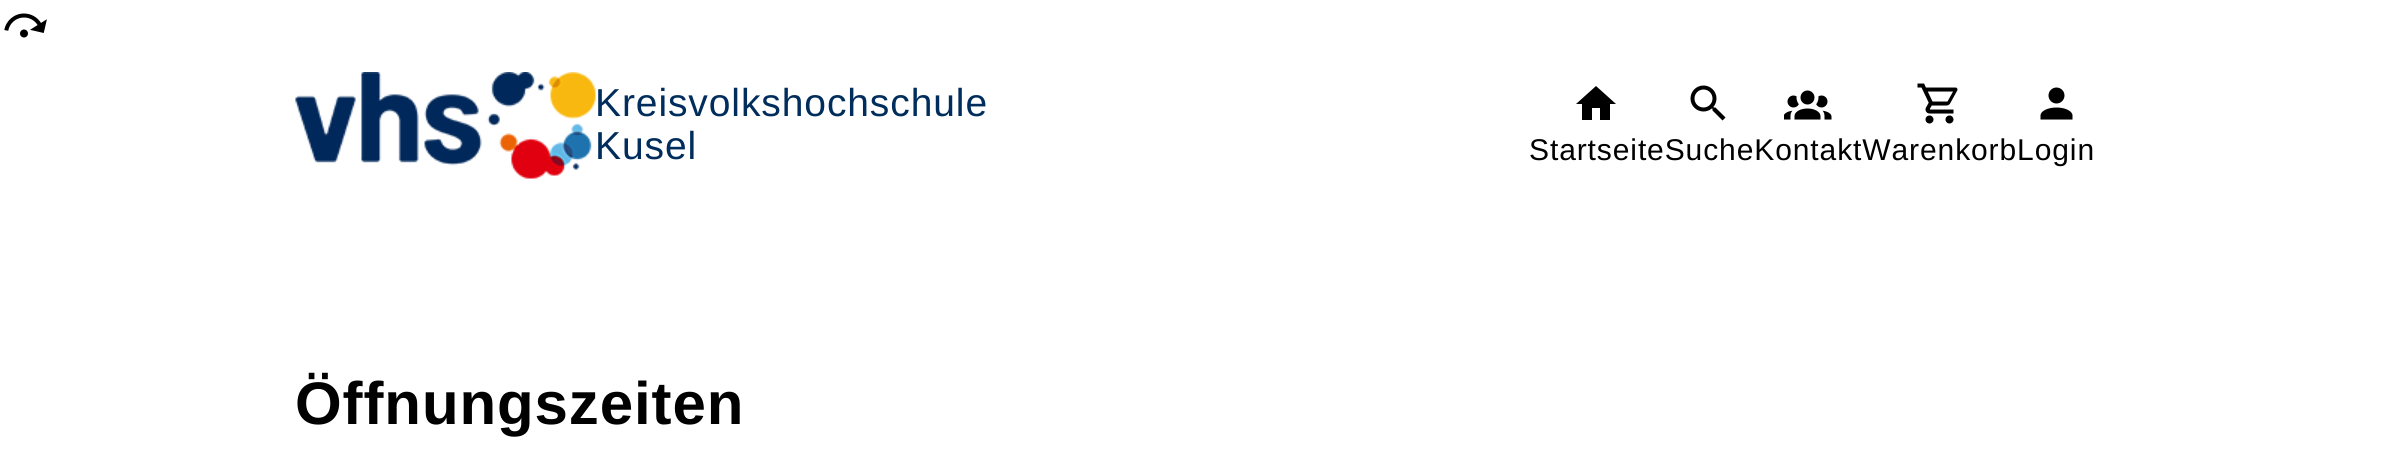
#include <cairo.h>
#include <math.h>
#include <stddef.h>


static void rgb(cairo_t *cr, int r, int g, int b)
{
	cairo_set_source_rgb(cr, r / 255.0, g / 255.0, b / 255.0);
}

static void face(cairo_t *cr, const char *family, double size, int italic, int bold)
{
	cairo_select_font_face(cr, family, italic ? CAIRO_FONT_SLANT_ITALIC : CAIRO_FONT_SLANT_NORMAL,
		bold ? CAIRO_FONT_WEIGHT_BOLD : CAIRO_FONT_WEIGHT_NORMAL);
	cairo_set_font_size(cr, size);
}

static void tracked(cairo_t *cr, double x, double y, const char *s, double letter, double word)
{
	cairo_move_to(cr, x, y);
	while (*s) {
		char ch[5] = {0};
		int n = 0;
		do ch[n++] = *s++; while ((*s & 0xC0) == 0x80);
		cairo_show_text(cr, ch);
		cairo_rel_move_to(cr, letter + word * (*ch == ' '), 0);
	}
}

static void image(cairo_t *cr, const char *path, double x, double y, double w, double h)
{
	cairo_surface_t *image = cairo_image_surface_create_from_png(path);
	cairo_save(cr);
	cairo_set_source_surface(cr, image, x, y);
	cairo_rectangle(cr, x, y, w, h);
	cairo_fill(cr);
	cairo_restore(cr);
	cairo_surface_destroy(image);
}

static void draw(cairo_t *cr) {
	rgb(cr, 255, 255, 255);
	cairo_paint(cr);
	image(cr, "image0.png", 4, 13, 43, 25);
	image(cr, "image1.png", 295, 72, 301, 107);
	face(cr, "Liberation Sans", 39, 0, 0);
	rgb(cr, 0, 45, 92);
	tracked(cr, 595, 116, "Kreisvolkshochschule", 0.9, 0);
	tracked(cr, 595, 159, "Kusel", 0.9, 0);
	image(cr, "image2.png", 1690, 85, 36, 36);
	image(cr, "image3.png", 1784, 90, 48, 30);
	image(cr, "image4.png", 1917, 83, 41, 41);
	image(cr, "image5.png", 2040, 87, 33, 33);
	rgb(cr, 0, 0, 0);
	cairo_new_path(cr);
	cairo_move_to(cr, 1592, 120);
	cairo_line_to(cr, 1592, 108);
	cairo_line_to(cr, 1600, 108);
	cairo_line_to(cr, 1600, 120);
	cairo_line_to(cr, 1610, 120);
	cairo_line_to(cr, 1610, 104);
	cairo_line_to(cr, 1616, 104);
	cairo_line_to(cr, 1596, 86);
	cairo_line_to(cr, 1576, 104);
	cairo_line_to(cr, 1582, 104);
	cairo_line_to(cr, 1582, 120);
	cairo_close_path(cr);
	cairo_fill(cr);
	face(cr, "Liberation Sans", 30, 0, 0);
	tracked(cr, 1529, 160, "StartseiteSucheKontaktWarenkorbLogin", 0.9, 0);
	face(cr, "Liberation Sans", 60, 0, 1);
	tracked(cr, 295, 424, "Öffnungszeiten", 0.9, 0);
}

int main(void) {
	cairo_surface_t *surface = cairo_image_surface_create(CAIRO_FORMAT_RGB24, 2389, 461);
	cairo_t *cr = cairo_create(surface);
	cairo_font_options_t *options = cairo_font_options_create();
	cairo_font_options_set_hint_metrics(options, CAIRO_HINT_METRICS_OFF);
	cairo_font_options_set_hint_style(options, CAIRO_HINT_STYLE_NONE);
	cairo_set_font_options(cr, options);
	cairo_set_miter_limit(cr, 4);
	draw(cr);
	cairo_surface_write_to_png(surface, "render.png");
	cairo_font_options_destroy(options);
	cairo_destroy(cr);
	cairo_surface_destroy(surface);
	return 0;
}
